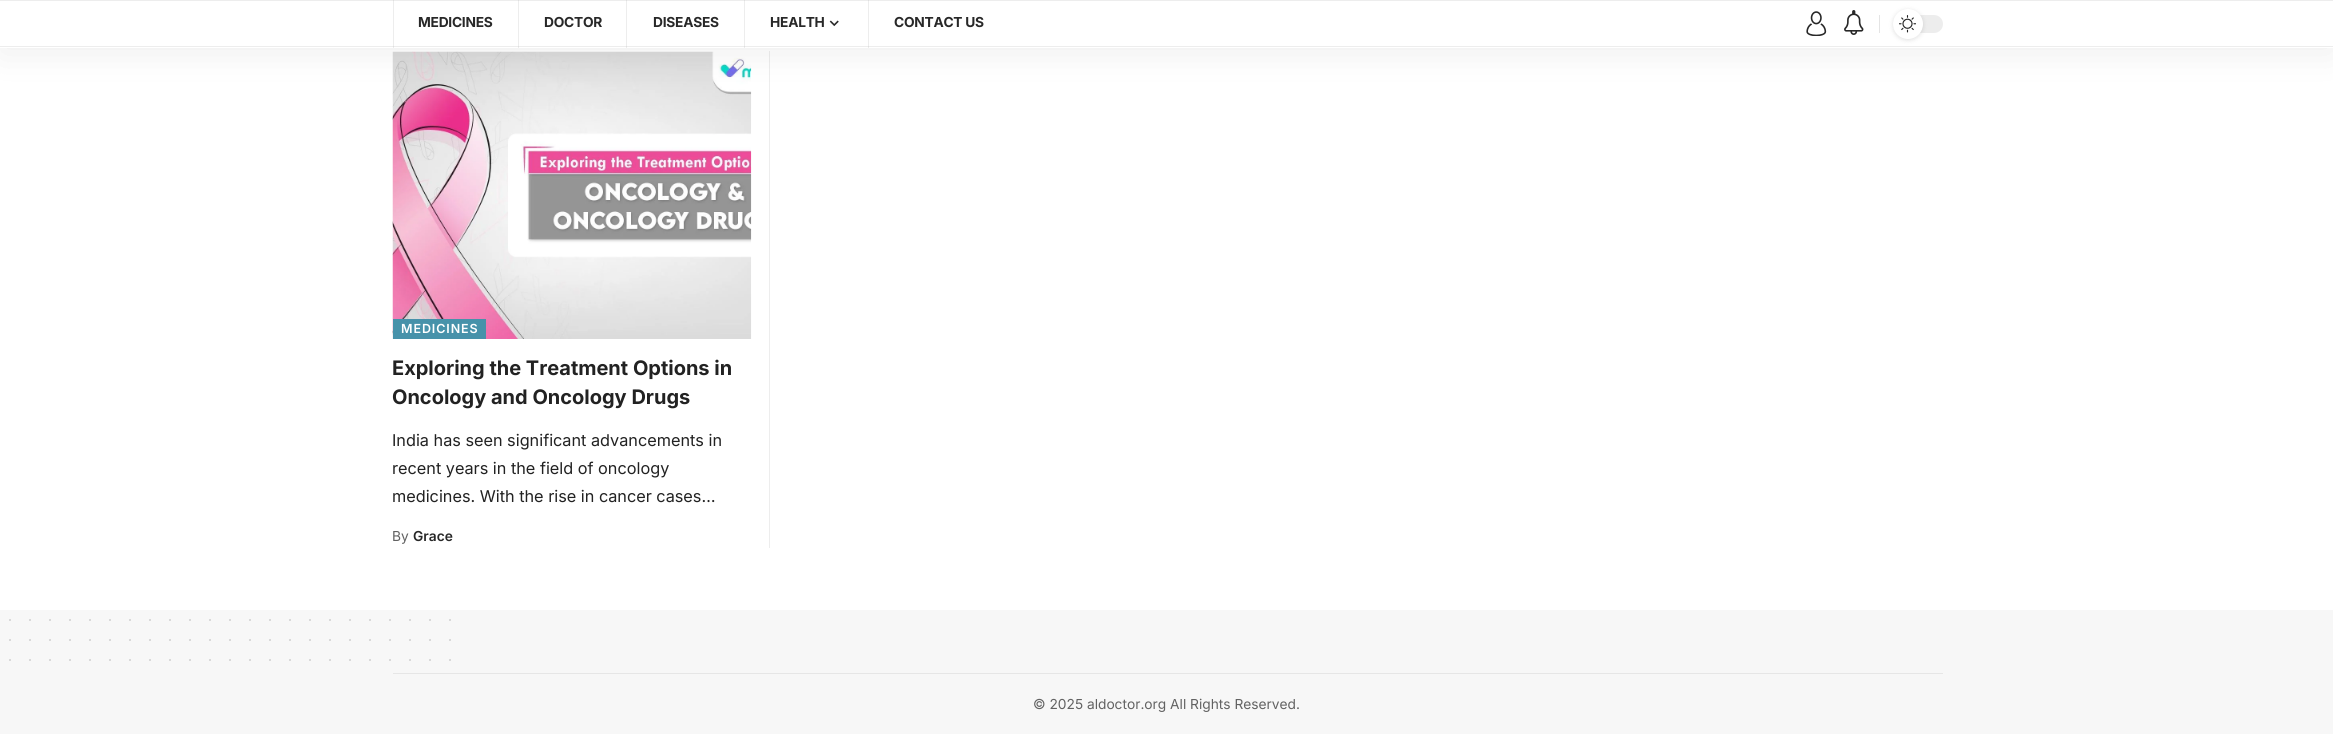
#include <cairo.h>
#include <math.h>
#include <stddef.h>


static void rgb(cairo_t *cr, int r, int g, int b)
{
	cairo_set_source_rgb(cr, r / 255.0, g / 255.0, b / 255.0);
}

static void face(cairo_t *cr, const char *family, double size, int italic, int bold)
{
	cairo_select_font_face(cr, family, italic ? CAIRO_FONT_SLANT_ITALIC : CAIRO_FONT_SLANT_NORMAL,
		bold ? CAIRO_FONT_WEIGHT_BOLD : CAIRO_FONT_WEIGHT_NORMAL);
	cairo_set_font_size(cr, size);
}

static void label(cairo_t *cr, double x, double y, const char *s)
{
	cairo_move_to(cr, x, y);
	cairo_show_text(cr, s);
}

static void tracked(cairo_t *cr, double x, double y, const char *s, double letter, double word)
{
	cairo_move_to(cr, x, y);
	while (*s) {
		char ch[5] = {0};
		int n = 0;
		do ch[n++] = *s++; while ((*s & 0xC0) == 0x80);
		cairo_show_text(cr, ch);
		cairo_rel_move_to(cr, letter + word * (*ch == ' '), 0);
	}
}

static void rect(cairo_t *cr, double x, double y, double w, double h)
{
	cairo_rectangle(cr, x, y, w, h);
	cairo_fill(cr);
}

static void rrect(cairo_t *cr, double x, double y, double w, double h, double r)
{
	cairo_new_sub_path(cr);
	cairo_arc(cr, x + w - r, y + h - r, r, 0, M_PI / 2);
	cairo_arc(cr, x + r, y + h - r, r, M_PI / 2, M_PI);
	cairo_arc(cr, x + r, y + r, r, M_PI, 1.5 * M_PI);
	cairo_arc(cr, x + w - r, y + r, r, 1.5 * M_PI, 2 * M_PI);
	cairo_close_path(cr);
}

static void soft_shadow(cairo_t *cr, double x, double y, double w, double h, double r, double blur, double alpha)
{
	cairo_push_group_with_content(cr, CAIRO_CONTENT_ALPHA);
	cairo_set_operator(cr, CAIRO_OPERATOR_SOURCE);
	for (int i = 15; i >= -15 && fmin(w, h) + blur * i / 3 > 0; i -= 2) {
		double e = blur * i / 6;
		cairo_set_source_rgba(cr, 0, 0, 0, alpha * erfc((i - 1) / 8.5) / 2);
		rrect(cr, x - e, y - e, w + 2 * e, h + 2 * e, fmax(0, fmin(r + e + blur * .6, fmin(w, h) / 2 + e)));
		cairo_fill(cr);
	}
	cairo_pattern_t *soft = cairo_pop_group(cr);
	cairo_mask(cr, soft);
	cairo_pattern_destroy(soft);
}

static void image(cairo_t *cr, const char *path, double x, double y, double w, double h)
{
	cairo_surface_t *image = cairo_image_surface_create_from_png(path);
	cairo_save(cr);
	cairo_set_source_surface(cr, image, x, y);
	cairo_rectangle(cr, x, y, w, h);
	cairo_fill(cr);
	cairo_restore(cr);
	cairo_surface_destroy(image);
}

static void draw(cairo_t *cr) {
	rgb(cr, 255, 255, 255);
	cairo_paint(cr);
	image(cr, "image4.png", 392, 51, 360, 288);
	rgb(cr, 237, 237, 237);
	rect(cr, 769, 51, 1, 497);
	rgb(cr, 0, 0, 0);
	soft_shadow(cr, 0, 5, 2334, 48, 0, 19, 0.07);
	rgb(cr, 255, 255, 255);
	rect(cr, 0, 1, 2333, 47);
	rgb(cr, 237, 237, 237);
	rect(cr, 0, 0, 2333, 1);
	cairo_set_source_rgba(cr, 0.533, 0.533, 0.533, 0.15);
	rect(cr, 393, 0, 1, 48);
	face(cr, "Inter", 13.75, 0, 1);
	rgb(cr, 40, 40, 40);
	tracked(cr, 418, 27, "MEDICINES", -0.25, 0);
	cairo_set_source_rgba(cr, 0.533, 0.533, 0.533, 0.15);
	rect(cr, 518, 0, 1, 48);
	rgb(cr, 40, 40, 40);
	tracked(cr, 544, 27, "DOCTOR", -0.25, 0);
	cairo_set_source_rgba(cr, 0.533, 0.533, 0.533, 0.15);
	rect(cr, 626, 0, 1, 48);
	rgb(cr, 40, 40, 40);
	tracked(cr, 653, 27, "DISEASES", -0.25, 0);
	cairo_set_source_rgba(cr, 0.533, 0.533, 0.533, 0.15);
	rect(cr, 744, 0, 1, 48);
	rgb(cr, 40, 40, 40);
	tracked(cr, 770, 27, "HEALTH", -0.25, 0);
	image(cr, "image0.png", 829, 20, 10, 7);
	cairo_set_source_rgba(cr, 0.533, 0.533, 0.533, 0.15);
	rect(cr, 868, 0, 1, 48);
	rgb(cr, 40, 40, 40);
	tracked(cr, 894, 27, "CONTACT US", -0.25, 0);
	image(cr, "image1.png", 1806, 11, 21, 25);
	image(cr, "image2.png", 1844, 10, 20, 25);
	rgb(cr, 228, 228, 228);
	rect(cr, 1879, 15, 1, 18);
	rgb(cr, 237, 237, 237);
	rrect(cr, 1893, 15, 50, 18, 9);
	cairo_fill(cr);
	rgb(cr, 0, 0, 0);
	soft_shadow(cr, 1893, 10, 30, 30, 15, 2.5, 0.12);
	rgb(cr, 255, 255, 255);
	cairo_arc(cr, 1908, 24, 15, 0, 2 * M_PI);
	cairo_fill(cr);
	image(cr, "image3.png", 1899, 15, 17, 18);
	cairo_set_source_rgba(cr, 0.533, 0.533, 0.533, 0.15);
	rect(cr, 0, 46, 2333, 1);
	rgb(cr, 71, 146, 170);
	rect(cr, 393, 319, 93, 20);
	face(cr, "Inter SemiBold", 12.5, 0, 0);
	rgb(cr, 255, 255, 255);
	tracked(cr, 401, 333, "MEDICINES", 0.9, 0);
	face(cr, "Inter", 20, 0, 1);
	rgb(cr, 34, 34, 34);
	label(cr, 392, 375, "Exploring the Treatment Options in");
	label(cr, 392, 404, "Oncology and Oncology Drugs");
	face(cr, "Inter", 16.25, 0, 0);
	label(cr, 392, 446, "India has seen significant advancements in");
	label(cr, 392, 474, "recent years in the field of oncology");
	label(cr, 392, 502, "medicines. With the rise in cancer cases…");
	face(cr, "Inter", 13.75, 0, 0);
	rgb(cr, 98, 98, 98);
	label(cr, 392, 541, "By");
	face(cr, "Inter SemiBold", 13.75, 0, 0);
	rgb(cr, 40, 40, 40);
	label(cr, 413, 541, "Grace");
	rgb(cr, 247, 247, 247);
	rect(cr, 0, 610, 2333, 124);
	cairo_new_path(cr);
	cairo_move_to(cr, 10, 620);
	cairo_line_to(cr, 450.2, 620);
	rgb(cr, 204, 204, 204);
	cairo_set_line_width(cr, 1.9);
	cairo_set_line_cap(cr, CAIRO_LINE_CAP_ROUND);
	cairo_set_dash(cr, (double[]){0, 20}, 2, 0);
	cairo_stroke(cr);
	cairo_new_path(cr);
	cairo_move_to(cr, 10, 640);
	cairo_line_to(cr, 450.2, 640);
	cairo_stroke(cr);
	cairo_new_path(cr);
	cairo_move_to(cr, 10, 660);
	cairo_line_to(cr, 450.2, 660);
	cairo_stroke(cr);
	rgb(cr, 230, 230, 230);
	rect(cr, 393, 673, 1550, 1);
	face(cr, "Inter", 13.75, 0, 0);
	rgb(cr, 98, 98, 98);
	label(cr, 1033, 709, "© 2025 aldoctor.org All Rights Reserved.");
}

int main(void) {
	cairo_surface_t *surface = cairo_image_surface_create(CAIRO_FORMAT_RGB24, 2333, 734);
	cairo_t *cr = cairo_create(surface);
	cairo_font_options_t *options = cairo_font_options_create();
	cairo_font_options_set_hint_metrics(options, CAIRO_HINT_METRICS_OFF);
	cairo_font_options_set_hint_style(options, CAIRO_HINT_STYLE_NONE);
	cairo_set_font_options(cr, options);
	cairo_set_miter_limit(cr, 4);
	draw(cr);
	cairo_surface_write_to_png(surface, "render.png");
	cairo_font_options_destroy(options);
	cairo_destroy(cr);
	cairo_surface_destroy(surface);
	return 0;
}
